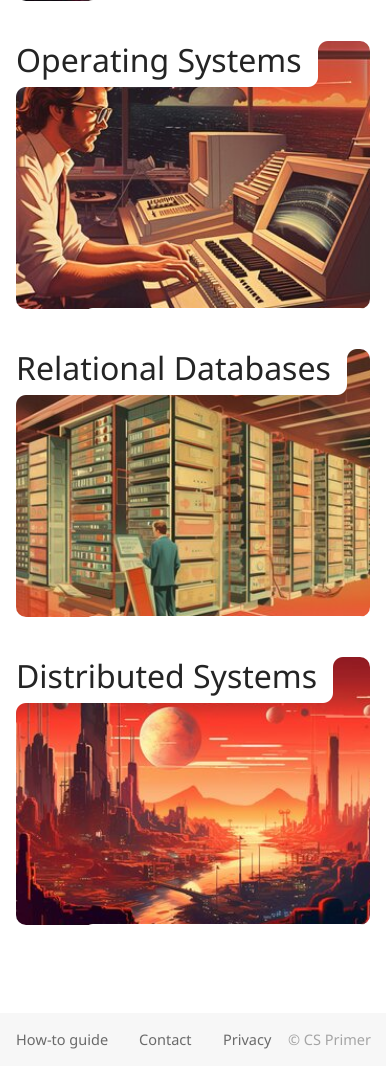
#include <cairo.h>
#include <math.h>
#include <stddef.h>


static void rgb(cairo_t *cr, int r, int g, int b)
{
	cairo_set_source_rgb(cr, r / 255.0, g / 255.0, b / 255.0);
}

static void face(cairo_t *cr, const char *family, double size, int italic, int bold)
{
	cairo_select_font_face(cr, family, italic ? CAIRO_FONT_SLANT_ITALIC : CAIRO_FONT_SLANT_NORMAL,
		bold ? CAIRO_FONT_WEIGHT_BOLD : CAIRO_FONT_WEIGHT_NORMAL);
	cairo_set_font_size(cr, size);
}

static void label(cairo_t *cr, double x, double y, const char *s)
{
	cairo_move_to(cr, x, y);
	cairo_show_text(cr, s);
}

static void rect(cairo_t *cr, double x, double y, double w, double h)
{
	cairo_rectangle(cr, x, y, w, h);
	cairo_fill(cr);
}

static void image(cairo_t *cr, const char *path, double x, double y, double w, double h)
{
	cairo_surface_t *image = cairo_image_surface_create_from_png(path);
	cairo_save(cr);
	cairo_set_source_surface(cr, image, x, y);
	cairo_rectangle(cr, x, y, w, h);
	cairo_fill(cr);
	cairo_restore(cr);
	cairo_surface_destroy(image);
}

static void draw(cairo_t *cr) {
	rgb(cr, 255, 255, 255);
	cairo_paint(cr);
	image(cr, "image0.png", 22, 0, 71, 1);
	rgb(cr, 255, 255, 255);
	cairo_new_path(cr);
	cairo_move_to(cr, 93, 0);
	cairo_line_to(cr, 370, 0);
	cairo_line_to(cr, 370, 1);
	cairo_line_to(cr, 83, 1);
	cairo_line_to(cr, 83, 10);
	cairo_curve_to(cr, 83, 4.5, 87.5, 0, 93, 0);
	cairo_close_path(cr);
	cairo_fill(cr);
	image(cr, "image1.png", 16, 41, 354, 268);
	cairo_new_path(cr);
	cairo_move_to(cr, 16, 41);
	cairo_line_to(cr, 318, 41);
	cairo_line_to(cr, 318, 77);
	cairo_curve_to(cr, 318, 82.5, 313.5, 87, 308, 87);
	cairo_line_to(cr, 16, 87);
	cairo_close_path(cr);
	cairo_fill(cr);
	face(cr, "Noto Sans", 32, 0, 0);
	rgb(cr, 36, 36, 36);
	label(cr, 16, 72, "Operating Systems");
	rgb(cr, 255, 255, 255);
	cairo_new_path(cr);
	cairo_move_to(cr, 318, 41);
	cairo_line_to(cr, 328, 41);
	cairo_curve_to(cr, 322.5, 41, 318, 45.5, 318, 51);
	cairo_line_to(cr, 318, 61);
	cairo_line_to(cr, 308, 61);
	cairo_line_to(cr, 308, 51);
	cairo_curve_to(cr, 308, 45.5, 312.5, 41, 318, 41);
	cairo_close_path(cr);
	cairo_fill(cr);
	cairo_new_path(cr);
	cairo_move_to(cr, 16, 87);
	cairo_line_to(cr, 16, 97);
	cairo_curve_to(cr, 16, 91.5, 20.5, 87, 26, 87);
	cairo_close_path(cr);
	cairo_fill(cr);
	cairo_save(cr);
	cairo_new_path(cr);
	cairo_move_to(cr, 16, 41);
	cairo_line_to(cr, 360, 41);
	cairo_curve_to(cr, 365.5, 41, 370, 45.5, 370, 51);
	cairo_line_to(cr, 370, 299);
	cairo_curve_to(cr, 370, 304.5, 365.5, 309, 360, 309);
	cairo_line_to(cr, 26, 309);
	cairo_curve_to(cr, 20.5, 309, 16, 304.5, 16, 299);
	cairo_close_path(cr);
	cairo_clip(cr);
	cairo_new_path(cr);
	cairo_move_to(cr, 93, 308);
	cairo_line_to(cr, 370, 308);
	cairo_line_to(cr, 370, 309);
	cairo_line_to(cr, 83, 309);
	cairo_line_to(cr, 83, 318);
	cairo_curve_to(cr, 83, 312.5, 87.5, 308, 93, 308);
	cairo_close_path(cr);
	cairo_fill(cr);
	cairo_restore(cr);
	image(cr, "image2.png", 16, 349, 354, 268);
	cairo_new_path(cr);
	cairo_move_to(cr, 16, 349);
	cairo_line_to(cr, 347, 349);
	cairo_line_to(cr, 347, 385);
	cairo_curve_to(cr, 347, 390.5, 342.5, 395, 337, 395);
	cairo_line_to(cr, 16, 395);
	cairo_close_path(cr);
	cairo_fill(cr);
	rgb(cr, 36, 36, 36);
	label(cr, 16, 380, "Relational Databases");
	rgb(cr, 255, 255, 255);
	cairo_new_path(cr);
	cairo_move_to(cr, 347, 349);
	cairo_line_to(cr, 357, 349);
	cairo_curve_to(cr, 351.5, 349, 347, 353.5, 347, 359);
	cairo_line_to(cr, 347, 369);
	cairo_line_to(cr, 337, 369);
	cairo_line_to(cr, 337, 359);
	cairo_curve_to(cr, 337, 353.5, 341.5, 349, 347, 349);
	cairo_close_path(cr);
	cairo_fill(cr);
	cairo_new_path(cr);
	cairo_move_to(cr, 16, 395);
	cairo_line_to(cr, 16, 405);
	cairo_curve_to(cr, 16, 399.5, 20.5, 395, 26, 395);
	cairo_close_path(cr);
	cairo_fill(cr);
	cairo_save(cr);
	cairo_new_path(cr);
	cairo_move_to(cr, 16, 349);
	cairo_line_to(cr, 360, 349);
	cairo_curve_to(cr, 365.5, 349, 370, 353.5, 370, 359);
	cairo_line_to(cr, 370, 607);
	cairo_curve_to(cr, 370, 612.5, 365.5, 617, 360, 617);
	cairo_line_to(cr, 26, 617);
	cairo_curve_to(cr, 20.5, 617, 16, 612.5, 16, 607);
	cairo_close_path(cr);
	cairo_clip(cr);
	cairo_new_path(cr);
	cairo_move_to(cr, 93, 616);
	cairo_line_to(cr, 370, 616);
	cairo_line_to(cr, 370, 617);
	cairo_line_to(cr, 83, 617);
	cairo_line_to(cr, 83, 626);
	cairo_curve_to(cr, 83, 620.5, 87.5, 616, 93, 616);
	cairo_close_path(cr);
	cairo_fill(cr);
	cairo_restore(cr);
	image(cr, "image3.png", 16, 657, 354, 268);
	cairo_new_path(cr);
	cairo_move_to(cr, 16, 657);
	cairo_line_to(cr, 333, 657);
	cairo_line_to(cr, 333, 693);
	cairo_curve_to(cr, 333, 698.5, 328.5, 703, 323, 703);
	cairo_line_to(cr, 16, 703);
	cairo_close_path(cr);
	cairo_fill(cr);
	rgb(cr, 36, 36, 36);
	label(cr, 16, 688, "Distributed Systems");
	rgb(cr, 255, 255, 255);
	cairo_new_path(cr);
	cairo_move_to(cr, 333, 657);
	cairo_line_to(cr, 343, 657);
	cairo_curve_to(cr, 337.5, 657, 333, 661.5, 333, 667);
	cairo_line_to(cr, 333, 677);
	cairo_line_to(cr, 323, 677);
	cairo_line_to(cr, 323, 667);
	cairo_curve_to(cr, 323, 661.5, 327.5, 657, 333, 657);
	cairo_close_path(cr);
	cairo_fill(cr);
	cairo_new_path(cr);
	cairo_move_to(cr, 16, 703);
	cairo_line_to(cr, 16, 713);
	cairo_curve_to(cr, 16, 707.5, 20.5, 703, 26, 703);
	cairo_close_path(cr);
	cairo_fill(cr);
	cairo_save(cr);
	cairo_new_path(cr);
	cairo_move_to(cr, 16, 657);
	cairo_line_to(cr, 360, 657);
	cairo_curve_to(cr, 365.5, 657, 370, 661.5, 370, 667);
	cairo_line_to(cr, 370, 915);
	cairo_curve_to(cr, 370, 920.5, 365.5, 925, 360, 925);
	cairo_line_to(cr, 26, 925);
	cairo_curve_to(cr, 20.5, 925, 16, 920.5, 16, 915);
	cairo_close_path(cr);
	cairo_clip(cr);
	cairo_new_path(cr);
	cairo_move_to(cr, 93, 924);
	cairo_line_to(cr, 370, 924);
	cairo_line_to(cr, 370, 925);
	cairo_line_to(cr, 83, 925);
	cairo_line_to(cr, 83, 934);
	cairo_curve_to(cr, 83, 928.5, 87.5, 924, 93, 924);
	cairo_close_path(cr);
	cairo_fill(cr);
	cairo_restore(cr);
	rgb(cr, 247, 247, 247);
	rect(cr, 0, 1013, 386, 53);
	face(cr, "Noto Sans", 14.5, 0, 0);
	rgb(cr, 106, 106, 106);
	label(cr, 16, 1045, "How‑to guide");
	label(cr, 139, 1045, "Contact");
	label(cr, 223, 1045, "Privacy");
	rgb(cr, 165, 165, 165);
	label(cr, 288, 1045, "© CS Primer");
}

int main(void) {
	cairo_surface_t *surface = cairo_image_surface_create(CAIRO_FORMAT_RGB24, 386, 1066);
	cairo_t *cr = cairo_create(surface);
	cairo_font_options_t *options = cairo_font_options_create();
	cairo_font_options_set_hint_metrics(options, CAIRO_HINT_METRICS_OFF);
	cairo_font_options_set_hint_style(options, CAIRO_HINT_STYLE_NONE);
	cairo_set_font_options(cr, options);
	cairo_set_miter_limit(cr, 4);
	draw(cr);
	cairo_surface_write_to_png(surface, "render.png");
	cairo_font_options_destroy(options);
	cairo_destroy(cr);
	cairo_surface_destroy(surface);
	return 0;
}
